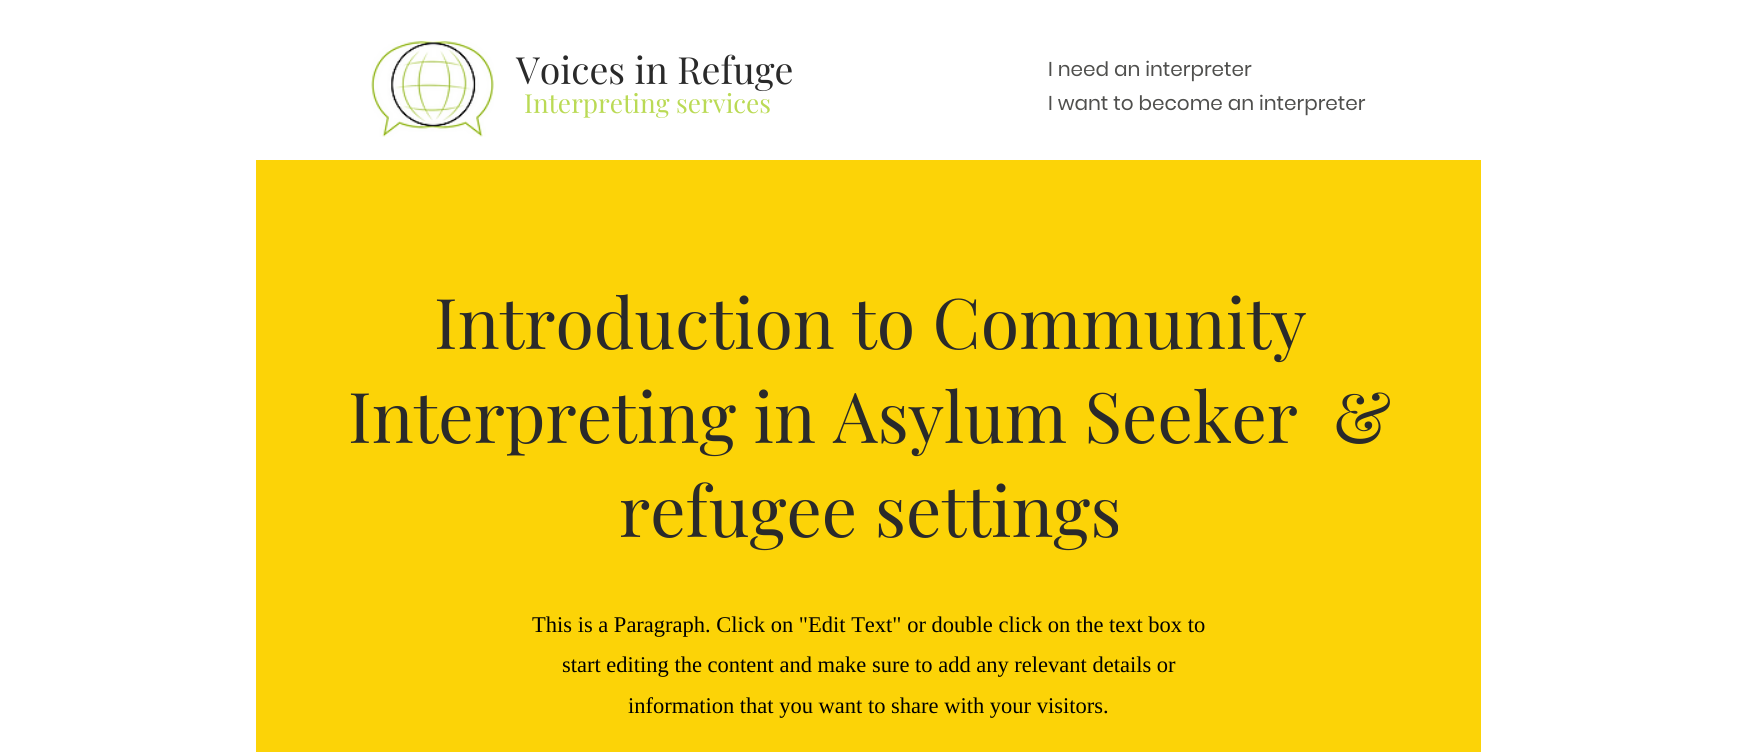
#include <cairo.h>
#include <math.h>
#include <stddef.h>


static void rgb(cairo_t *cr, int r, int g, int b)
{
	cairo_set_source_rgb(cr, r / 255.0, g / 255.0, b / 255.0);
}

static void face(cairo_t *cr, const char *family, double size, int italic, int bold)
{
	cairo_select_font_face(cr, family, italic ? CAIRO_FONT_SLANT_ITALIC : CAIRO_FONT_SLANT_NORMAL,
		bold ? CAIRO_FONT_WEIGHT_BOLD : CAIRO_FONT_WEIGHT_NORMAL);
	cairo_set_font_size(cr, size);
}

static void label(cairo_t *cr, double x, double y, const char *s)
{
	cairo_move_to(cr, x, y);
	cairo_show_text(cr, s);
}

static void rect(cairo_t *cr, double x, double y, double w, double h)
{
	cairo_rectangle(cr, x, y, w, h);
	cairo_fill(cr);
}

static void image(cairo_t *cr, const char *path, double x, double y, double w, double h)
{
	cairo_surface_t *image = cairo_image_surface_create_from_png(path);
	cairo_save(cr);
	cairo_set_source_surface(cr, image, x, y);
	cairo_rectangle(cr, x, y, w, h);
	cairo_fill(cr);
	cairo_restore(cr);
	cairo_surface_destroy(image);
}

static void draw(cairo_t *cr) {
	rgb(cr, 255, 255, 255);
	cairo_paint(cr);
	image(cr, "image0.png", 371, 41, 123, 96);
	face(cr, "Playfair Display", 37.5, 0, 0);
	rgb(cr, 42, 42, 42);
	label(cr, 516, 84, "Voices in Refuge");
	face(cr, "Playfair Display", 26.25, 0, 0);
	rgb(cr, 186, 218, 85);
	label(cr, 524, 113, "Interpreting services");
	face(cr, "Poppins", 20, 0, 0);
	rgb(cr, 79, 79, 77);
	label(cr, 1048, 76, "I need an interpreter");
	label(cr, 1048, 110, "I want to become an interpreter");
	rgb(cr, 252, 211, 7);
	rect(cr, 256, 160, 1225, 592);
	face(cr, "Playfair Display", 70, 0, 0);
	rgb(cr, 42, 42, 42);
	label(cr, 434, 349, "Introduction to Community");
	label(cr, 348, 443, "Interpreting in Asylum Seeker  &");
	label(cr, 619, 537, "refugee settings");
	face(cr, "Liberation Serif", 22.5, 0, 0);
	rgb(cr, 0, 0, 0);
	label(cr, 532, 632, "This is a Paragraph. Click on \"Edit Text\" or double click on the text box to");
	label(cr, 562, 672, "start editing the content and make sure to add any relevant details or");
	label(cr, 628, 713, "information that you want to share with your visitors.");
}

int main(void) {
	cairo_surface_t *surface = cairo_image_surface_create(CAIRO_FORMAT_RGB24, 1737, 752);
	cairo_t *cr = cairo_create(surface);
	cairo_font_options_t *options = cairo_font_options_create();
	cairo_font_options_set_hint_metrics(options, CAIRO_HINT_METRICS_OFF);
	cairo_font_options_set_hint_style(options, CAIRO_HINT_STYLE_NONE);
	cairo_set_font_options(cr, options);
	cairo_set_miter_limit(cr, 4);
	draw(cr);
	cairo_surface_write_to_png(surface, "render.png");
	cairo_font_options_destroy(options);
	cairo_destroy(cr);
	cairo_surface_destroy(surface);
	return 0;
}
